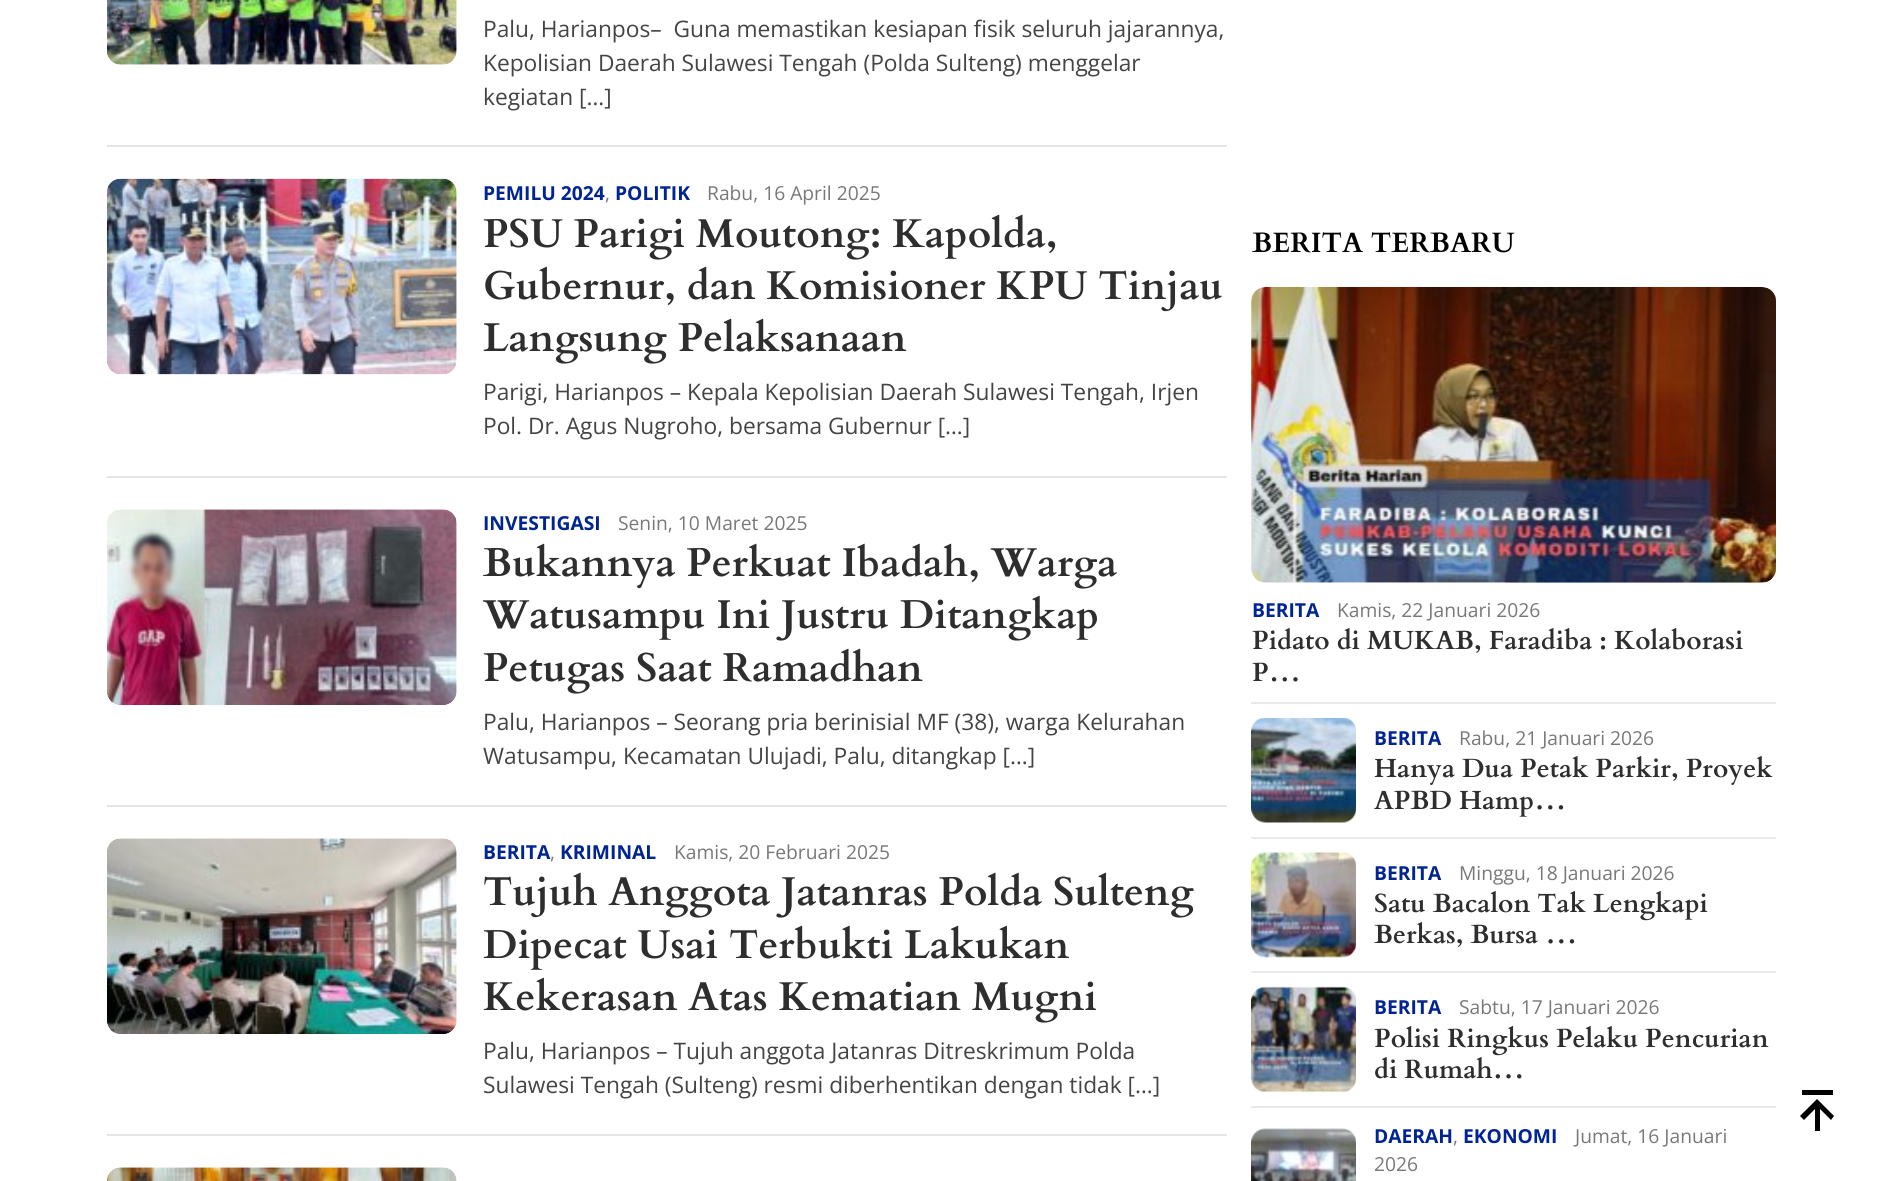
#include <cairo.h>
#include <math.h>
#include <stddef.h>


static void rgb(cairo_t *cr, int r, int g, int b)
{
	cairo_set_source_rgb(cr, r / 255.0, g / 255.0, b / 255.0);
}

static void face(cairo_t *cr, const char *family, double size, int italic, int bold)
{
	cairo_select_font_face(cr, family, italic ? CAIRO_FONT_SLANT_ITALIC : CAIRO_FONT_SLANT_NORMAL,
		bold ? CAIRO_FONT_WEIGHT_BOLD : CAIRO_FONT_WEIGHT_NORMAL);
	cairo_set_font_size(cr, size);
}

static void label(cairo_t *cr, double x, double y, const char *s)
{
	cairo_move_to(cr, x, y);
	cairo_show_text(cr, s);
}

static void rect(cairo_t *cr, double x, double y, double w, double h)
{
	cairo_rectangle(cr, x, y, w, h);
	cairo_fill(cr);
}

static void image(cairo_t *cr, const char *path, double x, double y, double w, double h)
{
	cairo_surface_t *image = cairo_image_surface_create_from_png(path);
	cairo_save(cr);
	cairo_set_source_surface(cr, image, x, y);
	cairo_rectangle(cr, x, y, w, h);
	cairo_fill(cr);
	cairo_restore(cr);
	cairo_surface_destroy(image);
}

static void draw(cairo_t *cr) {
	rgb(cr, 255, 255, 255);
	cairo_paint(cr);
	rgb(cr, 229, 229, 229);
	rect(cr, 107, 145, 1120, 2);
	image(cr, "image0.png", 107, 0, 350, 65);
	face(cr, "Open Sans", 22.75, 0, 0);
	rgb(cr, 68, 68, 68);
	label(cr, 483, 37, "Palu, Harianpos–  Guna memastikan kesiapan fisik seluruh jajarannya,");
	label(cr, 483, 71, "Kepolisian Daerah Sulawesi Tengah (Polda Sulteng) menggelar");
	label(cr, 483, 105, "kegiatan […]");
	rgb(cr, 229, 229, 229);
	rect(cr, 107, 476, 1120, 2);
	image(cr, "image1.png", 107, 178, 350, 197);
	face(cr, "Open Sans", 19.25, 0, 1);
	rgb(cr, 0, 36, 145);
	label(cr, 483, 200, "PEMILU 2024");
	face(cr, "Open Sans", 19.25, 0, 0);
	rgb(cr, 120, 120, 120);
	label(cr, 605, 200, ",");
	face(cr, "Open Sans", 19.25, 0, 1);
	rgb(cr, 0, 36, 145);
	label(cr, 615, 200, "POLITIK");
	face(cr, "Open Sans", 19.25, 0, 0);
	rgb(cr, 120, 120, 120);
	label(cr, 707, 200, "Rabu, 16 April 2025");
	face(cr, "Cardo", 40.25, 0, 1);
	rgb(cr, 46, 46, 46);
	label(cr, 483, 247, "PSU Parigi Moutong: Kapolda,");
	label(cr, 483, 299, "Gubernur, dan Komisioner KPU Tinjau");
	label(cr, 483, 351, "Langsung Pelaksanaan");
	face(cr, "Open Sans", 22.75, 0, 0);
	rgb(cr, 68, 68, 68);
	label(cr, 483, 400, "Parigi, Harianpos – Kepala Kepolisian Daerah Sulawesi Tengah, Irjen");
	label(cr, 483, 434, "Pol. Dr. Agus Nugroho, bersama Gubernur […]");
	rgb(cr, 229, 229, 229);
	rect(cr, 107, 805, 1120, 2);
	image(cr, "image2.png", 107, 509, 350, 196);
	face(cr, "Open Sans", 19.25, 0, 1);
	rgb(cr, 0, 36, 145);
	label(cr, 483, 530, "INVESTIGASI");
	face(cr, "Open Sans", 19.25, 0, 0);
	rgb(cr, 120, 120, 120);
	label(cr, 618, 530, "Senin, 10 Maret 2025");
	face(cr, "Cardo", 40.25, 0, 1);
	rgb(cr, 46, 46, 46);
	label(cr, 483, 576, "Bukannya Perkuat Ibadah, Warga");
	label(cr, 483, 628, "Watusampu Ini Justru Ditangkap");
	label(cr, 483, 681, "Petugas Saat Ramadhan");
	face(cr, "Open Sans", 22.75, 0, 0);
	rgb(cr, 68, 68, 68);
	label(cr, 483, 730, "Palu, Harianpos – Seorang pria berinisial MF (38), warga Kelurahan");
	label(cr, 483, 764, "Watusampu, Kecamatan Ulujadi, Palu, ditangkap […]");
	rgb(cr, 229, 229, 229);
	rect(cr, 107, 1134, 1120, 2);
	image(cr, "image3.png", 107, 838, 350, 196);
	face(cr, "Open Sans", 19.25, 0, 1);
	rgb(cr, 0, 36, 145);
	label(cr, 483, 859, "BERITA");
	face(cr, "Open Sans", 19.25, 0, 0);
	rgb(cr, 120, 120, 120);
	label(cr, 550, 859, ",");
	face(cr, "Open Sans", 19.25, 0, 1);
	rgb(cr, 0, 36, 145);
	label(cr, 560, 859, "KRIMINAL");
	face(cr, "Open Sans", 19.25, 0, 0);
	rgb(cr, 120, 120, 120);
	label(cr, 674, 859, "Kamis, 20 Februari 2025");
	face(cr, "Cardo", 40.25, 0, 1);
	rgb(cr, 46, 46, 46);
	label(cr, 483, 905, "Tujuh Anggota Jatanras Polda Sulteng");
	label(cr, 483, 958, "Dipecat Usai Terbukti Lakukan");
	label(cr, 483, 1010, "Kekerasan Atas Kematian Mugni");
	face(cr, "Open Sans", 22.75, 0, 0);
	rgb(cr, 68, 68, 68);
	label(cr, 483, 1059, "Palu, Harianpos – Tujuh anggota Jatanras Ditreskrimum Polda");
	label(cr, 483, 1093, "Sulawesi Tengah (Sulteng) resmi diberhentikan dengan tidak […]");
	image(cr, "image4.png", 107, 1167, 350, 14);
	face(cr, "Cardo", 28, 0, 1);
	rgb(cr, 0, 0, 0);
	label(cr, 1252, 252, "BERITA TERBARU");
	rgb(cr, 233, 233, 233);
	rect(cr, 1251, 702, 525, 2);
	image(cr, "image5.png", 1251, 287, 525, 296);
	face(cr, "Open Sans", 19.25, 0, 1);
	rgb(cr, 0, 36, 145);
	label(cr, 1252, 617, "BERITA");
	face(cr, "Open Sans", 19.25, 0, 0);
	rgb(cr, 120, 120, 120);
	label(cr, 1337, 617, "Kamis, 22 Januari 2026");
	face(cr, "Cardo", 26.25, 0, 1);
	rgb(cr, 46, 46, 46);
	label(cr, 1252, 649, "Pidato di MUKAB, Faradiba : Kolaborasi");
	label(cr, 1252, 681, "P…");
	rgb(cr, 233, 233, 233);
	rect(cr, 1251, 837, 525, 2);
	image(cr, "image6.png", 1251, 718, 105, 105);
	face(cr, "Open Sans", 19.25, 0, 1);
	rgb(cr, 0, 36, 145);
	label(cr, 1374, 745, "BERITA");
	face(cr, "Open Sans", 19.25, 0, 0);
	rgb(cr, 120, 120, 120);
	label(cr, 1459, 745, "Rabu, 21 Januari 2026");
	face(cr, "Cardo", 26.25, 0, 1);
	rgb(cr, 46, 46, 46);
	label(cr, 1374, 777, "Hanya Dua Petak Parkir, Proyek");
	label(cr, 1374, 809, "APBD Hamp…");
	rgb(cr, 233, 233, 233);
	rect(cr, 1251, 971, 525, 2);
	image(cr, "image7.png", 1251, 852, 105, 106);
	face(cr, "Open Sans", 19.25, 0, 1);
	rgb(cr, 0, 36, 145);
	label(cr, 1374, 880, "BERITA");
	face(cr, "Open Sans", 19.25, 0, 0);
	rgb(cr, 120, 120, 120);
	label(cr, 1459, 880, "Minggu, 18 Januari 2026");
	face(cr, "Cardo", 26.25, 0, 1);
	rgb(cr, 46, 46, 46);
	label(cr, 1374, 912, "Satu Bacalon Tak Lengkapi");
	label(cr, 1374, 943, "Berkas, Bursa …");
	rgb(cr, 233, 233, 233);
	rect(cr, 1251, 1106, 525, 2);
	image(cr, "image8.png", 1251, 986, 105, 107);
	face(cr, "Open Sans", 19.25, 0, 1);
	rgb(cr, 0, 36, 145);
	label(cr, 1374, 1014, "BERITA");
	face(cr, "Open Sans", 19.25, 0, 0);
	rgb(cr, 120, 120, 120);
	label(cr, 1459, 1014, "Sabtu, 17 Januari 2026");
	face(cr, "Cardo", 26.25, 0, 1);
	rgb(cr, 46, 46, 46);
	label(cr, 1374, 1047, "Polisi Ringkus Pelaku Pencurian");
	label(cr, 1374, 1078, "di Rumah…");
	image(cr, "image9.png", 1251, 1128, 105, 53);
	face(cr, "Open Sans", 19.25, 0, 1);
	rgb(cr, 0, 36, 145);
	label(cr, 1374, 1143, "DAERAH");
	face(cr, "Open Sans", 19.25, 0, 0);
	rgb(cr, 120, 120, 120);
	label(cr, 1453, 1143, ",");
	face(cr, "Open Sans", 19.25, 0, 1);
	rgb(cr, 0, 36, 145);
	label(cr, 1463, 1143, "EKONOMI");
	face(cr, "Open Sans", 19.25, 0, 0);
	rgb(cr, 120, 120, 120);
	label(cr, 1575, 1143, "Jumat, 16 Januari");
	label(cr, 1374, 1171, "2026");
	rgb(cr, 0, 0, 0);
	cairo_new_path(cr);
	cairo_move_to(cr, 1802, 1090);
	cairo_line_to(cr, 1833, 1090);
	cairo_line_to(cr, 1833, 1095);
	cairo_line_to(cr, 1802, 1095);
	cairo_close_path(cr);
	cairo_move_to(cr, 1804, 1120);
	cairo_line_to(cr, 1815, 1109);
	cairo_line_to(cr, 1815, 1131);
	cairo_line_to(cr, 1820, 1131);
	cairo_line_to(cr, 1820, 1109);
	cairo_line_to(cr, 1831, 1120);
	cairo_line_to(cr, 1834, 1116);
	cairo_line_to(cr, 1817, 1099);
	cairo_line_to(cr, 1800, 1116);
	cairo_close_path(cr);
	cairo_fill(cr);
}

int main(void) {
	cairo_surface_t *surface = cairo_image_surface_create(CAIRO_FORMAT_RGB24, 1882, 1181);
	cairo_t *cr = cairo_create(surface);
	cairo_font_options_t *options = cairo_font_options_create();
	cairo_font_options_set_hint_metrics(options, CAIRO_HINT_METRICS_OFF);
	cairo_font_options_set_hint_style(options, CAIRO_HINT_STYLE_NONE);
	cairo_set_font_options(cr, options);
	cairo_set_miter_limit(cr, 4);
	draw(cr);
	cairo_surface_write_to_png(surface, "render.png");
	cairo_font_options_destroy(options);
	cairo_destroy(cr);
	cairo_surface_destroy(surface);
	return 0;
}
